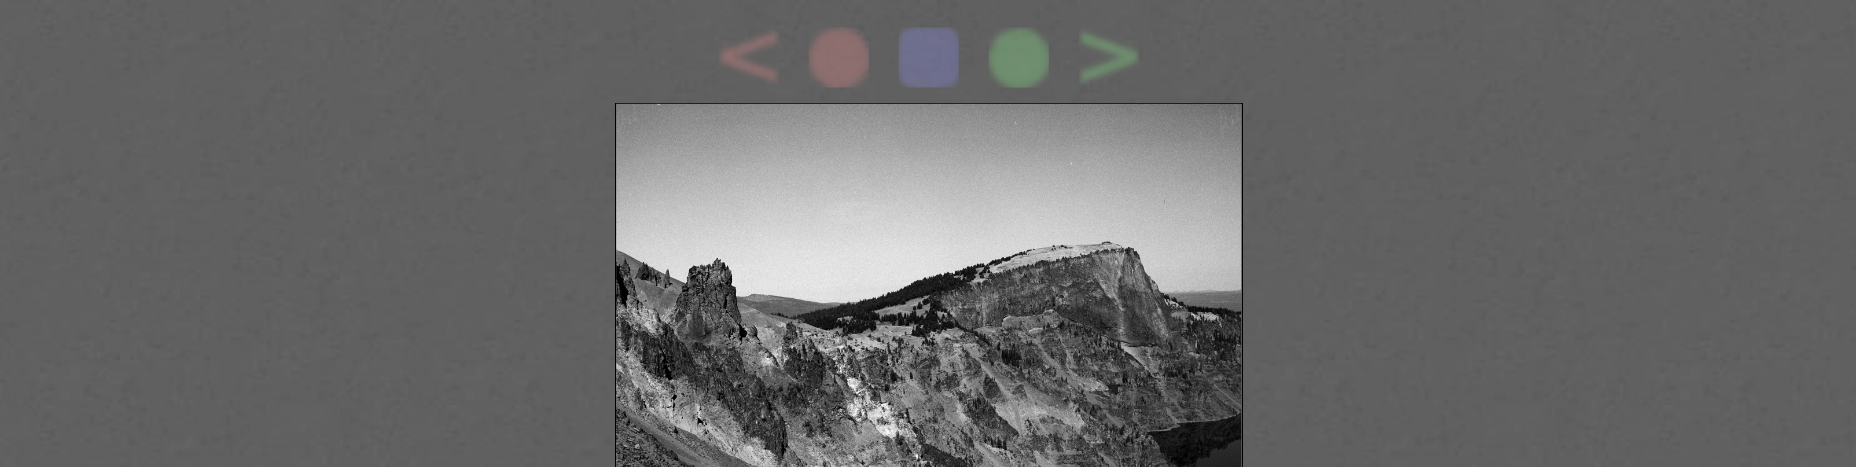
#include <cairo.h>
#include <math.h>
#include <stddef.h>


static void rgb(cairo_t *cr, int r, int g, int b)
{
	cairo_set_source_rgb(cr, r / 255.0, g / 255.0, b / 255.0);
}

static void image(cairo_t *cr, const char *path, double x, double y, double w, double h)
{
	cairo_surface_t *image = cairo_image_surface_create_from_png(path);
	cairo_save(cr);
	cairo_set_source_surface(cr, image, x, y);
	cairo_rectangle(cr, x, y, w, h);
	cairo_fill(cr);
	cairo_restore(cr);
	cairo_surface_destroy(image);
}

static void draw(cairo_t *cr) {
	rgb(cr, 255, 255, 255);
	cairo_paint(cr);
	image(cr, "image0.png", 0, 0, 1856, 467);
	image(cr, "image1.png", 719, 29, 60, 56);
	image(cr, "image2.png", 808, 27, 61, 61);
	image(cr, "image3.png", 898, 27, 61, 61);
	image(cr, "image4.png", 988, 27, 61, 61);
	image(cr, "image5.png", 1079, 29, 60, 56);
	cairo_rectangle(cr, 615.5, 103.5, 627, 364);
	rgb(cr, 0, 0, 0);
	cairo_set_line_width(cr, 1);
	cairo_stroke(cr);
	image(cr, "image6.png", 616, 103, 626, 364);
}

int main(void) {
	cairo_surface_t *surface = cairo_image_surface_create(CAIRO_FORMAT_RGB24, 1856, 467);
	cairo_t *cr = cairo_create(surface);
	cairo_font_options_t *options = cairo_font_options_create();
	cairo_font_options_set_hint_metrics(options, CAIRO_HINT_METRICS_OFF);
	cairo_font_options_set_hint_style(options, CAIRO_HINT_STYLE_NONE);
	cairo_set_font_options(cr, options);
	cairo_set_miter_limit(cr, 4);
	draw(cr);
	cairo_surface_write_to_png(surface, "render.png");
	cairo_font_options_destroy(options);
	cairo_destroy(cr);
	cairo_surface_destroy(surface);
	return 0;
}
